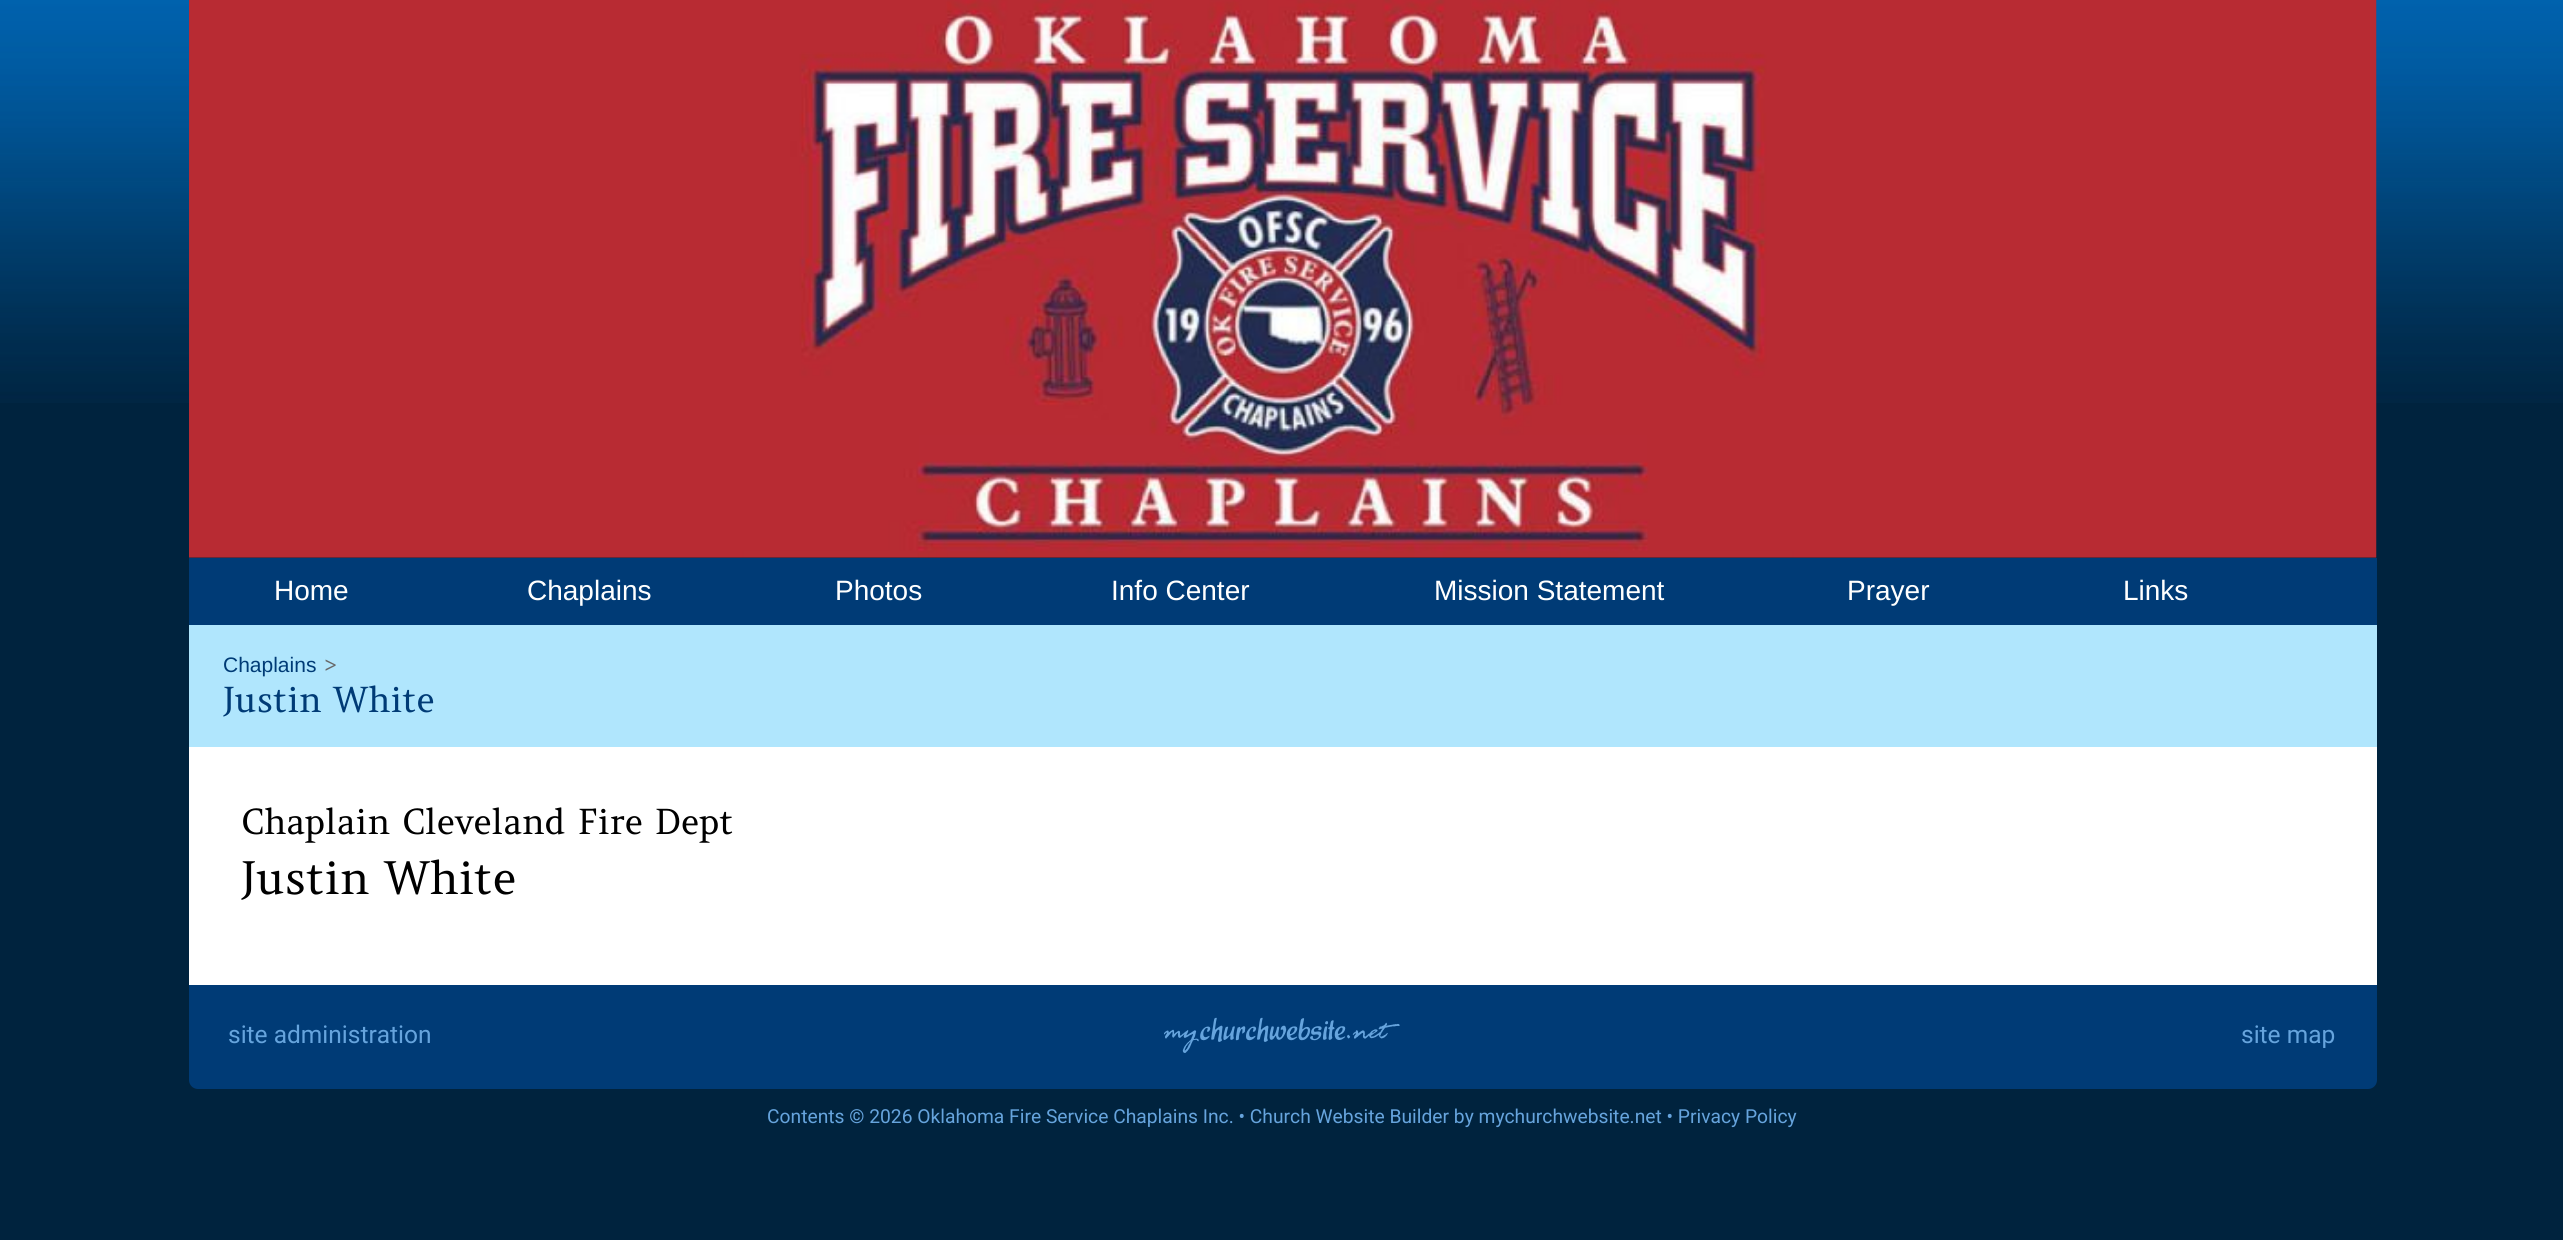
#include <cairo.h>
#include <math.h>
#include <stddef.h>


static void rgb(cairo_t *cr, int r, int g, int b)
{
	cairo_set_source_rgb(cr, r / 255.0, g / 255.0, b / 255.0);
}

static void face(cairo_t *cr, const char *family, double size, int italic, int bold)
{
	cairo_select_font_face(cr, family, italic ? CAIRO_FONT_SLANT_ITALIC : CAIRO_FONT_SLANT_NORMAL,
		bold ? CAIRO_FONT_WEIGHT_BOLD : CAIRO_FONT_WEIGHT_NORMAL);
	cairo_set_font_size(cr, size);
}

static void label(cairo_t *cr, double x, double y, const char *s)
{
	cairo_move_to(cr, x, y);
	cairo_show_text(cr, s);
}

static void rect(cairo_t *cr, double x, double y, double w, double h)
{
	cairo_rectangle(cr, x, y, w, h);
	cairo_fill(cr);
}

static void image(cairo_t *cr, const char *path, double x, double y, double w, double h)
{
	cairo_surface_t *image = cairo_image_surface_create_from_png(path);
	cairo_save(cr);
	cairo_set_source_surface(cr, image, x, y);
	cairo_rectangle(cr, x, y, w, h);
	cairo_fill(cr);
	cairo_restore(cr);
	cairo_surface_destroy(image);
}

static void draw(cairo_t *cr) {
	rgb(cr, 0, 35, 62);
	cairo_paint(cr);
	image(cr, "image0.png", 0, 0, 2563, 403);
	image(cr, "image1.png", 189, 0, 2188, 558);
	rgb(cr, 0, 59, 118);
	rect(cr, 189, 558, 2188, 67);
	face(cr, "Liberation Sans", 28, 0, 0);
	rgb(cr, 255, 255, 255);
	label(cr, 274, 600, "Home");
	label(cr, 527, 600, "Chaplains");
	label(cr, 835, 600, "Photos");
	label(cr, 1111, 600, "Info Center");
	label(cr, 1434, 600, "Mission Statement");
	label(cr, 1847, 600, "Prayer");
	label(cr, 2123, 600, "Links");
	rect(cr, 189, 747, 2188, 238);
	rgb(cr, 176, 230, 253);
	rect(cr, 189, 625, 2188, 122);
	face(cr, "Liberation Sans", 21, 0, 0);
	rgb(cr, 0, 59, 118);
	label(cr, 223, 672, "Chaplains");
	face(cr, "Amethysta", 21, 0, 0);
	rgb(cr, 104, 104, 104);
	label(cr, 324, 672, ">");
	face(cr, "Amethysta", 35, 0, 0);
	rgb(cr, 0, 59, 118);
	label(cr, 223, 712, "Justin White");
	rgb(cr, 0, 0, 0);
	label(cr, 241, 834, "Chaplain Cleveland Fire Dept");
	face(cr, "Amethysta", 45.5, 0, 0);
	label(cr, 241, 894, "Justin White");
	rgb(cr, 0, 59, 118);
	cairo_new_path(cr);
	cairo_move_to(cr, 189, 985);
	cairo_line_to(cr, 2377, 985);
	cairo_line_to(cr, 2377, 1080);
	cairo_curve_to(cr, 2377, 1085, 2373, 1089, 2368, 1089);
	cairo_line_to(cr, 198, 1089);
	cairo_curve_to(cr, 193, 1089, 189, 1085, 189, 1080);
	cairo_close_path(cr);
	cairo_fill(cr);
	face(cr, "Roboto", 24.5, 0, 0);
	rgb(cr, 102, 164, 221);
	label(cr, 228, 1043, "site administration");
	image(cr, "image2.png", 1164, 1017, 236, 36);
	label(cr, 2241, 1043, "site map");
	face(cr, "Roboto", 19.25, 0, 0);
	label(cr, 767, 1123, "Contents © 2026 Oklahoma Fire Service Chaplains Inc. • Church Website Builder by mychurchwebsite.net • Privacy Policy");
}

int main(void) {
	cairo_surface_t *surface = cairo_image_surface_create(CAIRO_FORMAT_RGB24, 2563, 1240);
	cairo_t *cr = cairo_create(surface);
	cairo_font_options_t *options = cairo_font_options_create();
	cairo_font_options_set_hint_metrics(options, CAIRO_HINT_METRICS_OFF);
	cairo_font_options_set_hint_style(options, CAIRO_HINT_STYLE_NONE);
	cairo_set_font_options(cr, options);
	cairo_set_miter_limit(cr, 4);
	draw(cr);
	cairo_surface_write_to_png(surface, "render.png");
	cairo_font_options_destroy(options);
	cairo_destroy(cr);
	cairo_surface_destroy(surface);
	return 0;
}
